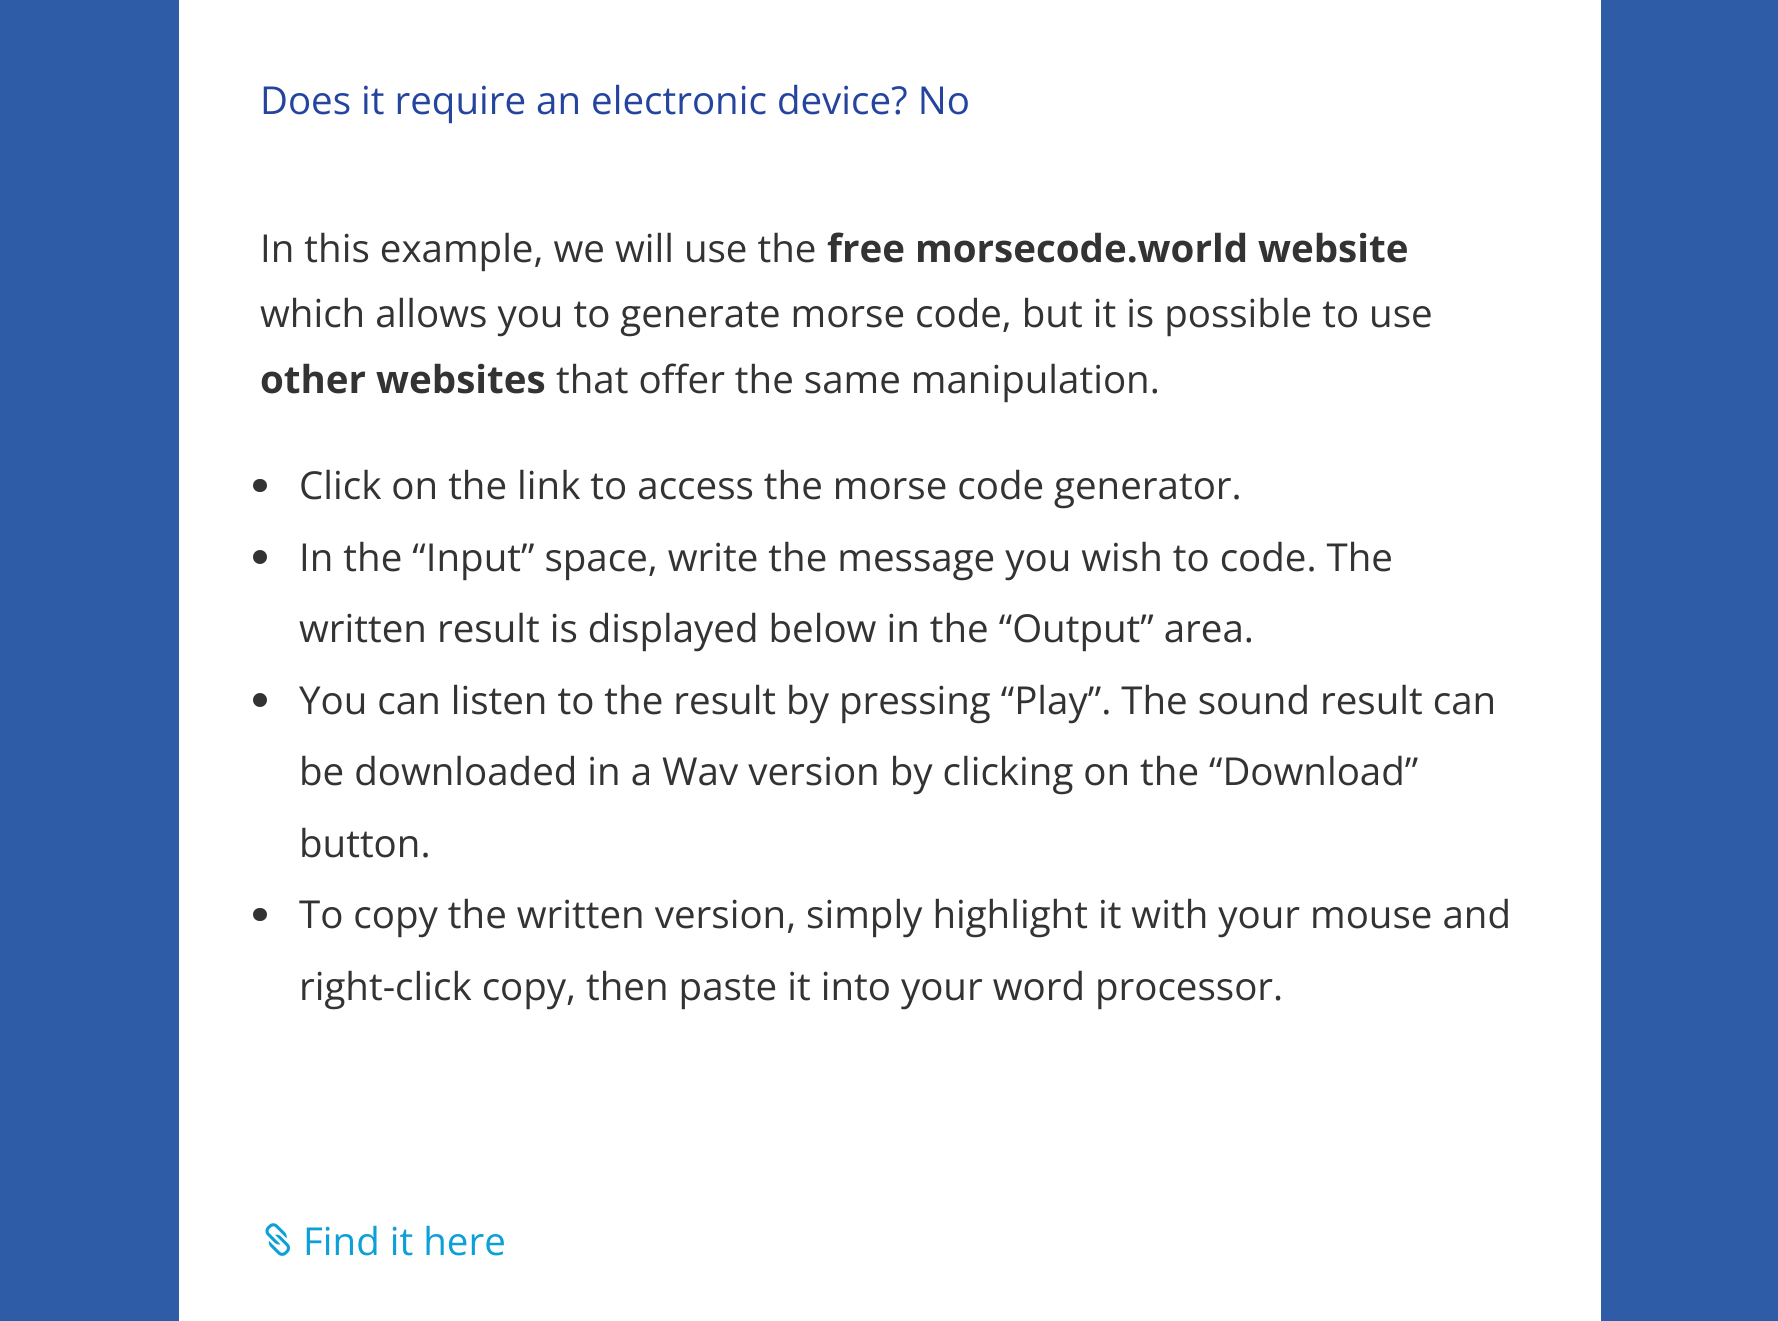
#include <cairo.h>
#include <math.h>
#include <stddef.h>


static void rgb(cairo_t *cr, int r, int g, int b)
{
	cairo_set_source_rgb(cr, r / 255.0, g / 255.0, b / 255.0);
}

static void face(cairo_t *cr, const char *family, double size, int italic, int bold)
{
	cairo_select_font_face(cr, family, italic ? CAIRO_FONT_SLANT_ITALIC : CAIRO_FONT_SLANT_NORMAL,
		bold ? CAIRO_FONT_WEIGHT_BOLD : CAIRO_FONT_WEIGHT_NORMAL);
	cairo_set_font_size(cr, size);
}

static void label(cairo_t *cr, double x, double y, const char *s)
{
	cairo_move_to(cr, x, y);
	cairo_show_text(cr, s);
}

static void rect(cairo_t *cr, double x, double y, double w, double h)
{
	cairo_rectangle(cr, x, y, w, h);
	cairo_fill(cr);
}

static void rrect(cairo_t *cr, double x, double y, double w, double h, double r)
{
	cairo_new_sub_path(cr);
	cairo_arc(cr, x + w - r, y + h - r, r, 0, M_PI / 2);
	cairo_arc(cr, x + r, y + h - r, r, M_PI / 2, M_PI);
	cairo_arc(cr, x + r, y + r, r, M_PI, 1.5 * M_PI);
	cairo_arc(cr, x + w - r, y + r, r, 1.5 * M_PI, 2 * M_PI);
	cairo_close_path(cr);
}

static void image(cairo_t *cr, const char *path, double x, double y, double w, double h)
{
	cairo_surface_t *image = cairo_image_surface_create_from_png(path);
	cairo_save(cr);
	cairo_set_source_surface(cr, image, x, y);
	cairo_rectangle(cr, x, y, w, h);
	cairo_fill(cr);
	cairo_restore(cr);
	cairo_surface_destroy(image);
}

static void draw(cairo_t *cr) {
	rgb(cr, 46, 92, 167);
	cairo_paint(cr);
	rgb(cr, 255, 255, 255);
	rect(cr, 179, 0, 1422, 1321);
	face(cr, "Open Sans", 38.5, 0, 0);
	rgb(cr, 36, 68, 158);
	label(cr, 260, 114, "Does it require an electronic device? No");
	rgb(cr, 51, 51, 51);
	label(cr, 260, 262, "In this example, we will use the");
	face(cr, "Open Sans", 38.5, 0, 1);
	label(cr, 827, 262, "free morsecode.world website");
	face(cr, "Open Sans", 38.5, 0, 0);
	label(cr, 260, 327, "which allows you to generate morse code, but it is possible to use");
	face(cr, "Open Sans", 38.5, 0, 1);
	label(cr, 260, 393, "other websites");
	face(cr, "Open Sans", 38.5, 0, 0);
	label(cr, 556, 393, "that offer the same manipulation.");
	rrect(cr, 253, 479, 14, 13, 6.5);
	cairo_fill(cr);
	label(cr, 299, 499, "Click on the link to access the morse code generator.");
	cairo_new_path(cr);
	cairo_arc(cr, 260, 557, 7, 0, 2 * M_PI);
	cairo_fill(cr);
	label(cr, 299, 571, "In the “Input” space, write the message you wish to code. The");
	label(cr, 299, 642, "written result is displayed below in the “Output” area.");
	cairo_new_path(cr);
	cairo_arc(cr, 260, 700, 7, 0, 2 * M_PI);
	cairo_fill(cr);
	label(cr, 299, 714, "You can listen to the result by pressing “Play”. The sound result can");
	label(cr, 299, 785, "be downloaded in a Wav version by clicking on the “Download”");
	label(cr, 299, 857, "button.");
	rrect(cr, 253, 908, 14, 13, 6.5);
	cairo_fill(cr);
	label(cr, 299, 928, "To copy the written version, simply highlight it with your mouse and");
	label(cr, 299, 1000, "right-click copy, then paste it into your word processor.");
	image(cr, "image0.png", 265, 1223, 25, 33);
	rgb(cr, 13, 159, 216);
	label(cr, 303, 1255, "Find it here");
}

int main(void) {
	cairo_surface_t *surface = cairo_image_surface_create(CAIRO_FORMAT_RGB24, 1778, 1321);
	cairo_t *cr = cairo_create(surface);
	cairo_font_options_t *options = cairo_font_options_create();
	cairo_font_options_set_hint_metrics(options, CAIRO_HINT_METRICS_OFF);
	cairo_font_options_set_hint_style(options, CAIRO_HINT_STYLE_NONE);
	cairo_set_font_options(cr, options);
	cairo_set_miter_limit(cr, 4);
	draw(cr);
	cairo_surface_write_to_png(surface, "render.png");
	cairo_font_options_destroy(options);
	cairo_destroy(cr);
	cairo_surface_destroy(surface);
	return 0;
}
